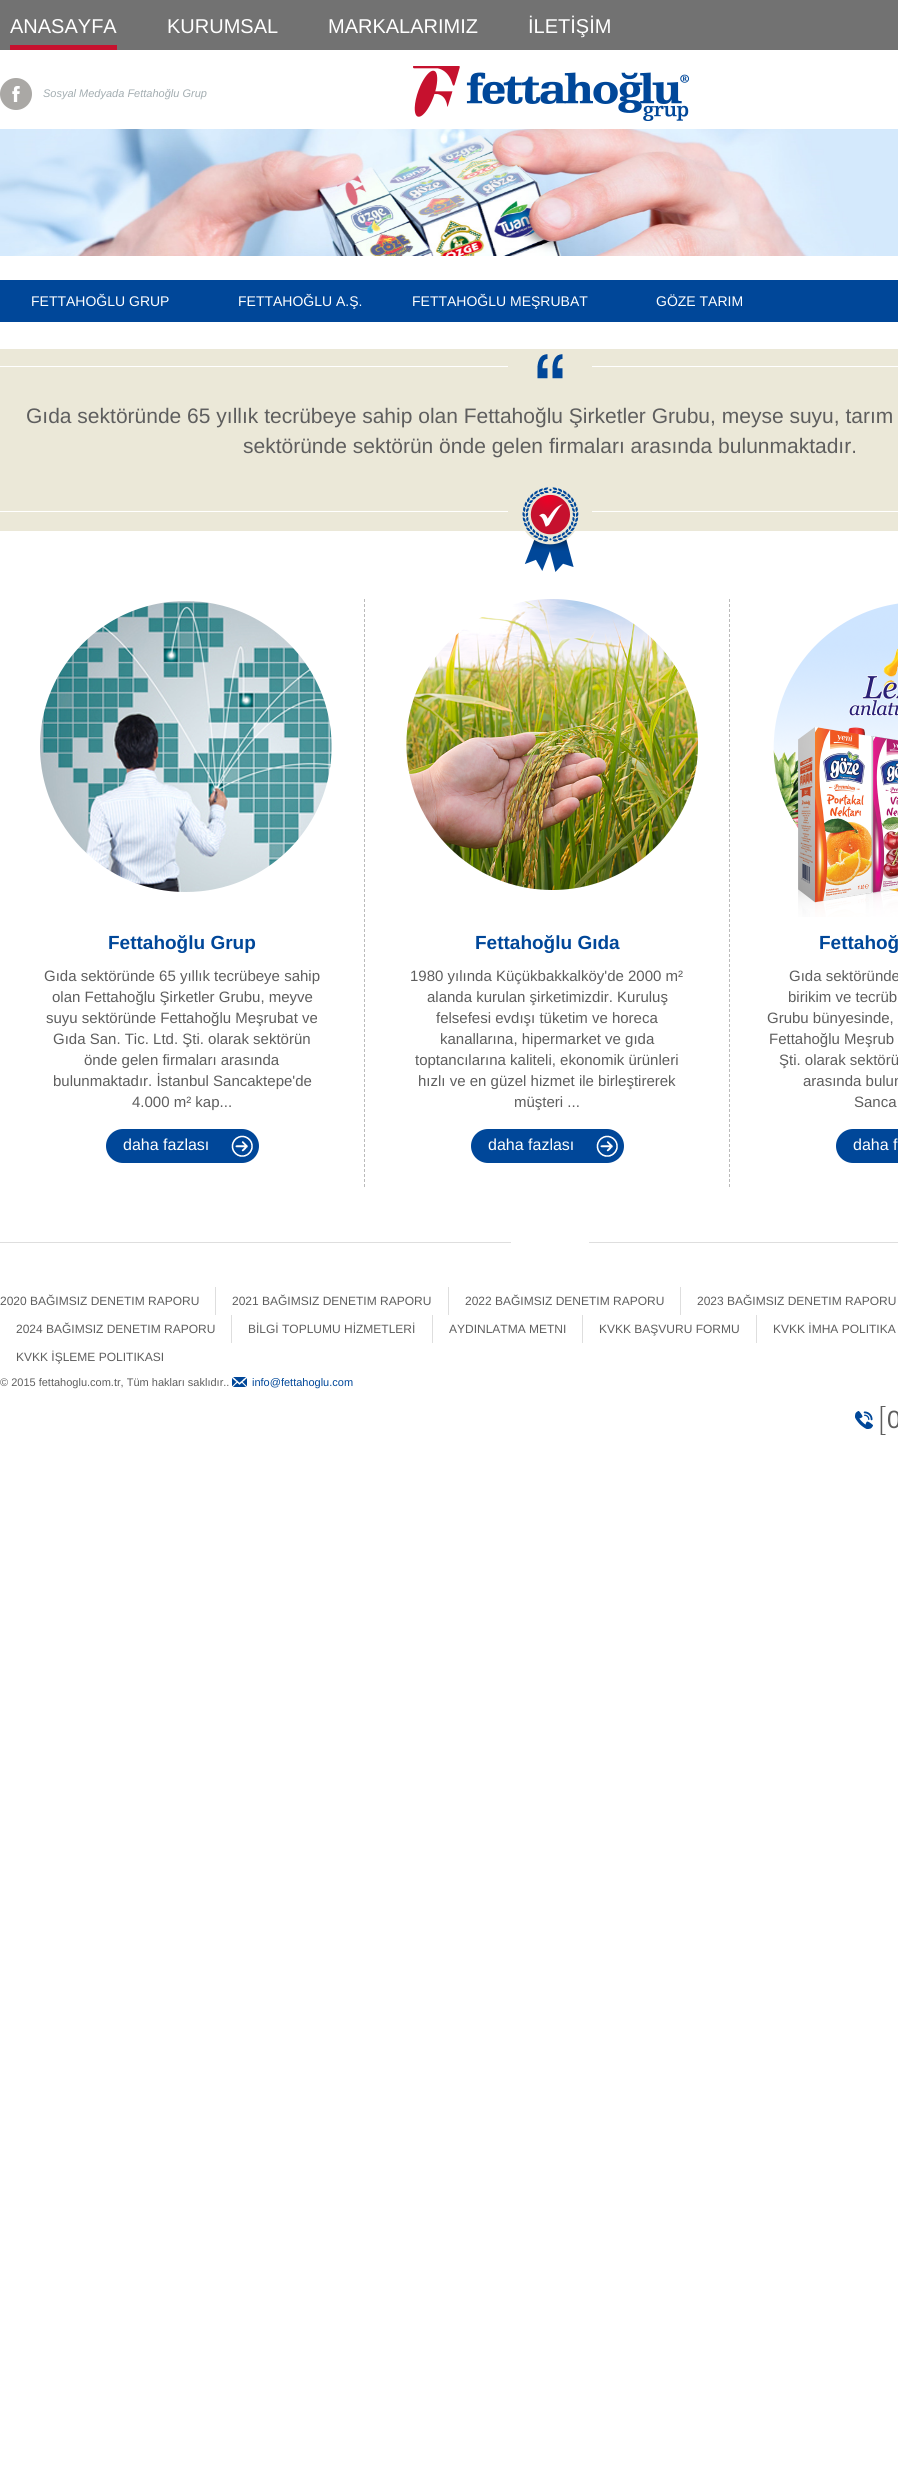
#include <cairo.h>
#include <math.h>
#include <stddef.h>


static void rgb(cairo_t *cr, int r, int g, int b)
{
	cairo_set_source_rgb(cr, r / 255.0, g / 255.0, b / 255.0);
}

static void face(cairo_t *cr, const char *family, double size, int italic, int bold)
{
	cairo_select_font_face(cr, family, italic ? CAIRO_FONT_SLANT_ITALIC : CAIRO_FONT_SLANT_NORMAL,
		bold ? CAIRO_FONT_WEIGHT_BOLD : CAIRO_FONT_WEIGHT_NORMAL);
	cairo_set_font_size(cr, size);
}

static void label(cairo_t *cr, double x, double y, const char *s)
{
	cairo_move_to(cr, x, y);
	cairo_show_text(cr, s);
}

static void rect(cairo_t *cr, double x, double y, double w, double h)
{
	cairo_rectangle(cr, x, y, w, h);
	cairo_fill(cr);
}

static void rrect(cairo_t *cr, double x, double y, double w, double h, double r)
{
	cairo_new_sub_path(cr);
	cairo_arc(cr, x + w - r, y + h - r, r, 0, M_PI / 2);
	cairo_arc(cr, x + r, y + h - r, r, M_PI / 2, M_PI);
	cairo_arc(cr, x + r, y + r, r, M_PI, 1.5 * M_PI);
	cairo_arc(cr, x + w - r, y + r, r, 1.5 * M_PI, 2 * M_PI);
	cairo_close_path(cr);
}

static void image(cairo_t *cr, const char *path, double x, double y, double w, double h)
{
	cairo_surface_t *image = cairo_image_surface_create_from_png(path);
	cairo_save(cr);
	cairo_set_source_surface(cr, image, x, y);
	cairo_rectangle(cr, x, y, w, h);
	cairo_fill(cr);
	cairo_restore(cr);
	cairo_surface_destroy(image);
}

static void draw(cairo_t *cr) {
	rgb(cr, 255, 255, 255);
	cairo_paint(cr);
	rgb(cr, 114, 114, 114);
	rect(cr, 0, 0, 898, 50);
	rgb(cr, 198, 17, 46);
	rect(cr, 10, 45, 107, 5);
	face(cr, "Liberation Sans", 20, 0, 0);
	rgb(cr, 255, 255, 255);
	label(cr, 10, 33, "ANASAYFA");
	label(cr, 167, 33, "KURUMSAL");
	label(cr, 328, 33, "MARKALARIMIZ");
	label(cr, 528, 33, "İLETİŞİM");
	image(cr, "image0.png", 0, 78, 32, 32);
	face(cr, "Liberation Sans", 11, 1, 0);
	rgb(cr, 163, 173, 177);
	label(cr, 43, 97, "Sosyal Medyada Fettahoğlu Grup");
	image(cr, "image1.png", 413, 66, 276, 55);
	rgb(cr, 0, 71, 153);
	rect(cr, 0, 280, 898, 42);
	image(cr, "image2.png", 0, 129, 898, 127);
	face(cr, "Liberation Sans", 14, 0, 0);
	rgb(cr, 255, 255, 255);
	label(cr, 31, 306, "FETTAHOĞLU GRUP");
	label(cr, 238, 306, "FETTAHOĞLU A.Ş.");
	label(cr, 412, 306, "FETTAHOĞLU MEŞRUBAT");
	label(cr, 656, 306, "GÖZE TARIM");
	rgb(cr, 235, 232, 216);
	rect(cr, 0, 349, 898, 182);
	image(cr, "image3.png", 0, 354, 898, 158);
	face(cr, "Liberation Sans", 21, 0, 0);
	rgb(cr, 94, 94, 94);
	label(cr, 26, 423, "Gıda sektöründe 65 yıllık tecrübeye sahip olan Fettahoğlu Şirketler Grubu, meyse suyu, tarım");
	label(cr, 243, 453, "sektöründe sektörün önde gelen firmaları arasında bulunmaktadır.");
	image(cr, "image4.png", 522, 487, 57, 85);
	cairo_new_path(cr);
	cairo_move_to(cr, 364.5, 599);
	cairo_line_to(cr, 364.5, 1187);
	rgb(cr, 186, 186, 186);
	cairo_set_line_width(cr, 1);
	cairo_set_dash(cr, (double[]){3, 2}, 2, 0);
	cairo_stroke(cr);
	image(cr, "image5.png", 40, 601, 292, 291);
	face(cr, "Liberation Sans", 19, 0, 1);
	rgb(cr, 0, 71, 153);
	label(cr, 108, 949, "Fettahoğlu Grup");
	face(cr, "Liberation Sans", 15, 0, 0);
	rgb(cr, 94, 94, 94);
	label(cr, 44, 981, "Gıda sektöründe 65 yıllık tecrübeye sahip");
	label(cr, 52, 1002, "olan Fettahoğlu Şirketler Grubu, meyve");
	label(cr, 46, 1023, "suyu sektöründe Fettahoğlu Meşrubat ve");
	label(cr, 53, 1044, "Gıda San. Tic. Ltd. Şti. olarak sektörün");
	label(cr, 84, 1065, "önde gelen firmaları arasında");
	label(cr, 53, 1086, "bulunmaktadır. İstanbul Sancaktepe'de");
	label(cr, 132, 1107, "4.000 m² kap...");
	rgb(cr, 0, 71, 153);
	rrect(cr, 106, 1129, 153, 34, 17);
	cairo_fill(cr);
	image(cr, "image6.png", 231, 1135, 22, 22);
	face(cr, "Liberation Sans", 16, 0, 0);
	rgb(cr, 255, 255, 255);
	label(cr, 123, 1150, "daha fazlası");
	cairo_new_path(cr);
	cairo_move_to(cr, 729.5, 599);
	cairo_line_to(cr, 729.5, 1187);
	rgb(cr, 186, 186, 186);
	cairo_stroke(cr);
	image(cr, "image7.png", 406, 599, 292, 291);
	face(cr, "Liberation Sans", 19, 0, 1);
	rgb(cr, 0, 71, 153);
	label(cr, 475, 949, "Fettahoğlu Gıda");
	face(cr, "Liberation Sans", 15, 0, 0);
	rgb(cr, 94, 94, 94);
	label(cr, 410, 981, "1980 yılında Küçükbakkalköy'de 2000 m²");
	label(cr, 427, 1002, "alanda kurulan şirketimizdir. Kuruluş");
	label(cr, 436, 1023, "felsefesi evdışı tüketim ve horeca");
	label(cr, 440, 1044, "kanallarına, hipermarket ve gıda");
	label(cr, 415, 1065, "toptancılarına kaliteli, ekonomik ürünleri");
	label(cr, 418, 1086, "hızlı ve en güzel hizmet ile birleştirerek");
	label(cr, 514, 1107, "müşteri ...");
	rgb(cr, 0, 71, 153);
	rrect(cr, 471, 1129, 153, 34, 17);
	cairo_fill(cr);
	image(cr, "image6.png", 596, 1135, 22, 22);
	face(cr, "Liberation Sans", 16, 0, 0);
	rgb(cr, 255, 255, 255);
	label(cr, 488, 1150, "daha fazlası");
	image(cr, "image8.png", 773, 603, 125, 314);
	face(cr, "Liberation Sans", 19, 0, 1);
	rgb(cr, 0, 71, 153);
	label(cr, 819, 949, "Fettahoğ");
	face(cr, "Liberation Sans", 15, 0, 0);
	rgb(cr, 94, 94, 94);
	label(cr, 789, 981, "Gıda sektöründe");
	label(cr, 788, 1002, "birikim ve tecrüb");
	label(cr, 767, 1023, "Grubu bünyesinde,");
	label(cr, 769, 1044, "Fettahoğlu Meşrub");
	label(cr, 779, 1065, "Şti. olarak sektörü");
	label(cr, 803, 1086, "arasında bulun");
	label(cr, 854, 1107, "Sanca");
	rgb(cr, 0, 71, 153);
	rrect(cr, 836, 1129, 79, 34, 17);
	cairo_fill(cr);
	face(cr, "Liberation Sans", 16, 0, 0);
	rgb(cr, 255, 255, 255);
	label(cr, 853, 1150, "daha f");
	image(cr, "image9.png", 0, 1242, 898, 1);
	rgb(cr, 222, 222, 222);
	rect(cr, 215, 1287, 1, 28);
	face(cr, "Liberation Sans", 12, 0, 0);
	rgb(cr, 94, 94, 94);
	label(cr, 0, 1305, "2020 BAĞIMSIZ DENETIM RAPORU");
	rgb(cr, 222, 222, 222);
	rect(cr, 448, 1287, 1, 28);
	rgb(cr, 94, 94, 94);
	label(cr, 232, 1305, "2021 BAĞIMSIZ DENETIM RAPORU");
	rgb(cr, 222, 222, 222);
	rect(cr, 680, 1287, 1, 28);
	rgb(cr, 94, 94, 94);
	label(cr, 465, 1305, "2022 BAĞIMSIZ DENETIM RAPORU");
	label(cr, 697, 1305, "2023 BAĞIMSIZ DENETIM RAPORU");
	rgb(cr, 222, 222, 222);
	rect(cr, 231, 1315, 1, 28);
	rgb(cr, 94, 94, 94);
	label(cr, 16, 1333, "2024 BAĞIMSIZ DENETIM RAPORU");
	rgb(cr, 222, 222, 222);
	rect(cr, 432, 1315, 1, 28);
	rgb(cr, 94, 94, 94);
	label(cr, 248, 1333, "BİLGİ TOPLUMU HİZMETLERİ");
	rgb(cr, 222, 222, 222);
	rect(cr, 582, 1315, 1, 28);
	rgb(cr, 94, 94, 94);
	label(cr, 449, 1333, "AYDINLATMA METNI");
	rgb(cr, 222, 222, 222);
	rect(cr, 756, 1315, 1, 28);
	rgb(cr, 94, 94, 94);
	label(cr, 599, 1333, "KVKK BAŞVURU FORMU");
	label(cr, 773, 1333, "KVKK İMHA POLITIKA");
	label(cr, 16, 1361, "KVKK İŞLEME POLITIKASI");
	face(cr, "Liberation Sans", 11, 0, 0);
	label(cr, 0, 1386, "© 2015 fettahoglu.com.tr, Tüm hakları saklıdır..");
	image(cr, "image10.png", 232, 1377, 15, 10);
	rgb(cr, 0, 71, 153);
	label(cr, 252, 1386, "info@fettahoglu.com");
	image(cr, "image11.png", 855, 1406, 31, 29);
	face(cr, "Liberation Sans", 25, 0, 0);
	rgb(cr, 94, 94, 94);
	label(cr, 887, 1428, "0");
}

int main(void) {
	cairo_surface_t *surface = cairo_image_surface_create(CAIRO_FORMAT_RGB24, 898, 2481);
	cairo_t *cr = cairo_create(surface);
	cairo_font_options_t *options = cairo_font_options_create();
	cairo_font_options_set_hint_metrics(options, CAIRO_HINT_METRICS_OFF);
	cairo_font_options_set_hint_style(options, CAIRO_HINT_STYLE_NONE);
	cairo_set_font_options(cr, options);
	cairo_set_miter_limit(cr, 4);
	draw(cr);
	cairo_surface_write_to_png(surface, "render.png");
	cairo_font_options_destroy(options);
	cairo_destroy(cr);
	cairo_surface_destroy(surface);
	return 0;
}
